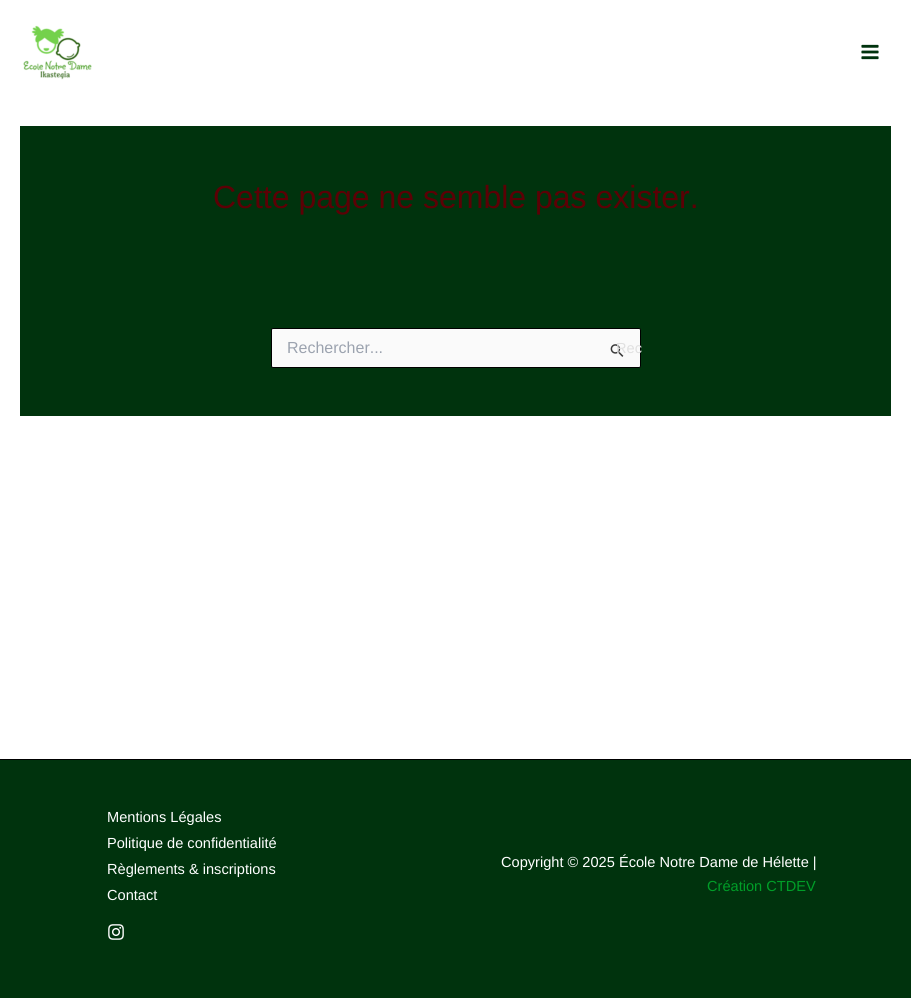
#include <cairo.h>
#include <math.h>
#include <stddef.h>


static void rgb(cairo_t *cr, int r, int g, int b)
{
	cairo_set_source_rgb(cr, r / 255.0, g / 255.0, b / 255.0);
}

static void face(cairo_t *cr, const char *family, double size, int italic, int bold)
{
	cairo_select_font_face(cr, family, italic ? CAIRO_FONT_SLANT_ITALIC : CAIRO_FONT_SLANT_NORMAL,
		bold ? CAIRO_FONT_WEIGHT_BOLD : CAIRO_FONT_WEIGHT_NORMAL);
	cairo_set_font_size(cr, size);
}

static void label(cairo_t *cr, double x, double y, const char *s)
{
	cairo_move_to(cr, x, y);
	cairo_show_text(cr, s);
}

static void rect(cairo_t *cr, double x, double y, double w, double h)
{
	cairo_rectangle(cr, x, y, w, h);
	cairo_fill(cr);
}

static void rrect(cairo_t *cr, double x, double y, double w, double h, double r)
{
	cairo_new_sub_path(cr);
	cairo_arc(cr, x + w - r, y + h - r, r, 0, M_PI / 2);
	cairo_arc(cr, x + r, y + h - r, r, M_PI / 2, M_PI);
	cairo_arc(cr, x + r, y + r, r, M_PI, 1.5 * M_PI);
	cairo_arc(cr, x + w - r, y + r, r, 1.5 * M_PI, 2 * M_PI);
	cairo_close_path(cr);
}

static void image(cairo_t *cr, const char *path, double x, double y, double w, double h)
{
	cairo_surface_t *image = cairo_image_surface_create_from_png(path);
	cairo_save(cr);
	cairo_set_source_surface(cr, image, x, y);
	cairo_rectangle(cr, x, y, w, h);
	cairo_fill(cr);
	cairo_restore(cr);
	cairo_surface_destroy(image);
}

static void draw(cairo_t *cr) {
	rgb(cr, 255, 255, 255);
	cairo_paint(cr);
	image(cr, "image0.png", 23, 25, 69, 55);
	image(cr, "image1.png", 861, 44, 18, 16);
	rgb(cr, 0, 51, 13);
	rect(cr, 20, 126, 871, 290);
	face(cr, "Liberation Sans", 32, 0, 0);
	rgb(cr, 92, 0, 5);
	label(cr, 213, 208, "Cette page ne semble pas exister.");
	rgb(cr, 250, 250, 250);
	rrect(cr, 271.5, 328.5, 369, 39, 1.5);
	cairo_fill_preserve(cr);
	rgb(cr, 0, 0, 0);
	cairo_set_line_width(cr, 1);
	cairo_stroke(cr);
	face(cr, "Liberation Sans", 16, 0, 0);
	rgb(cr, 156, 163, 175);
	label(cr, 287, 353, "Rechercher...");
	image(cr, "image2.png", 610, 344, 14, 13);
	face(cr, "Liberation Sans", 14.6, 0, 0);
	rgb(cr, 224, 224, 224);
	label(cr, 616, 353, "Rec");
	rgb(cr, 0, 51, 13);
	rect(cr, 0, 760, 911, 238);
	rgb(cr, 0, 0, 0);
	rect(cr, 0, 759, 911, 1);
	rgb(cr, 255, 255, 255);
	label(cr, 107, 822, "Mentions Légales");
	label(cr, 107, 848, "Politique de confidentialité");
	label(cr, 107, 874, "Règlements & inscriptions");
	label(cr, 107, 900, "Contact");
	image(cr, "image3.png", 108, 924, 16, 16);
	label(cr, 501, 867, "Copyright © 2025 École Notre Dame de Hélette |");
	rgb(cr, 0, 158, 40);
	label(cr, 707, 891, "Création CTDEV");
}

int main(void) {
	cairo_surface_t *surface = cairo_image_surface_create(CAIRO_FORMAT_RGB24, 911, 998);
	cairo_t *cr = cairo_create(surface);
	cairo_font_options_t *options = cairo_font_options_create();
	cairo_font_options_set_hint_metrics(options, CAIRO_HINT_METRICS_OFF);
	cairo_font_options_set_hint_style(options, CAIRO_HINT_STYLE_NONE);
	cairo_set_font_options(cr, options);
	cairo_set_miter_limit(cr, 4);
	draw(cr);
	cairo_surface_write_to_png(surface, "render.png");
	cairo_font_options_destroy(options);
	cairo_destroy(cr);
	cairo_surface_destroy(surface);
	return 0;
}
